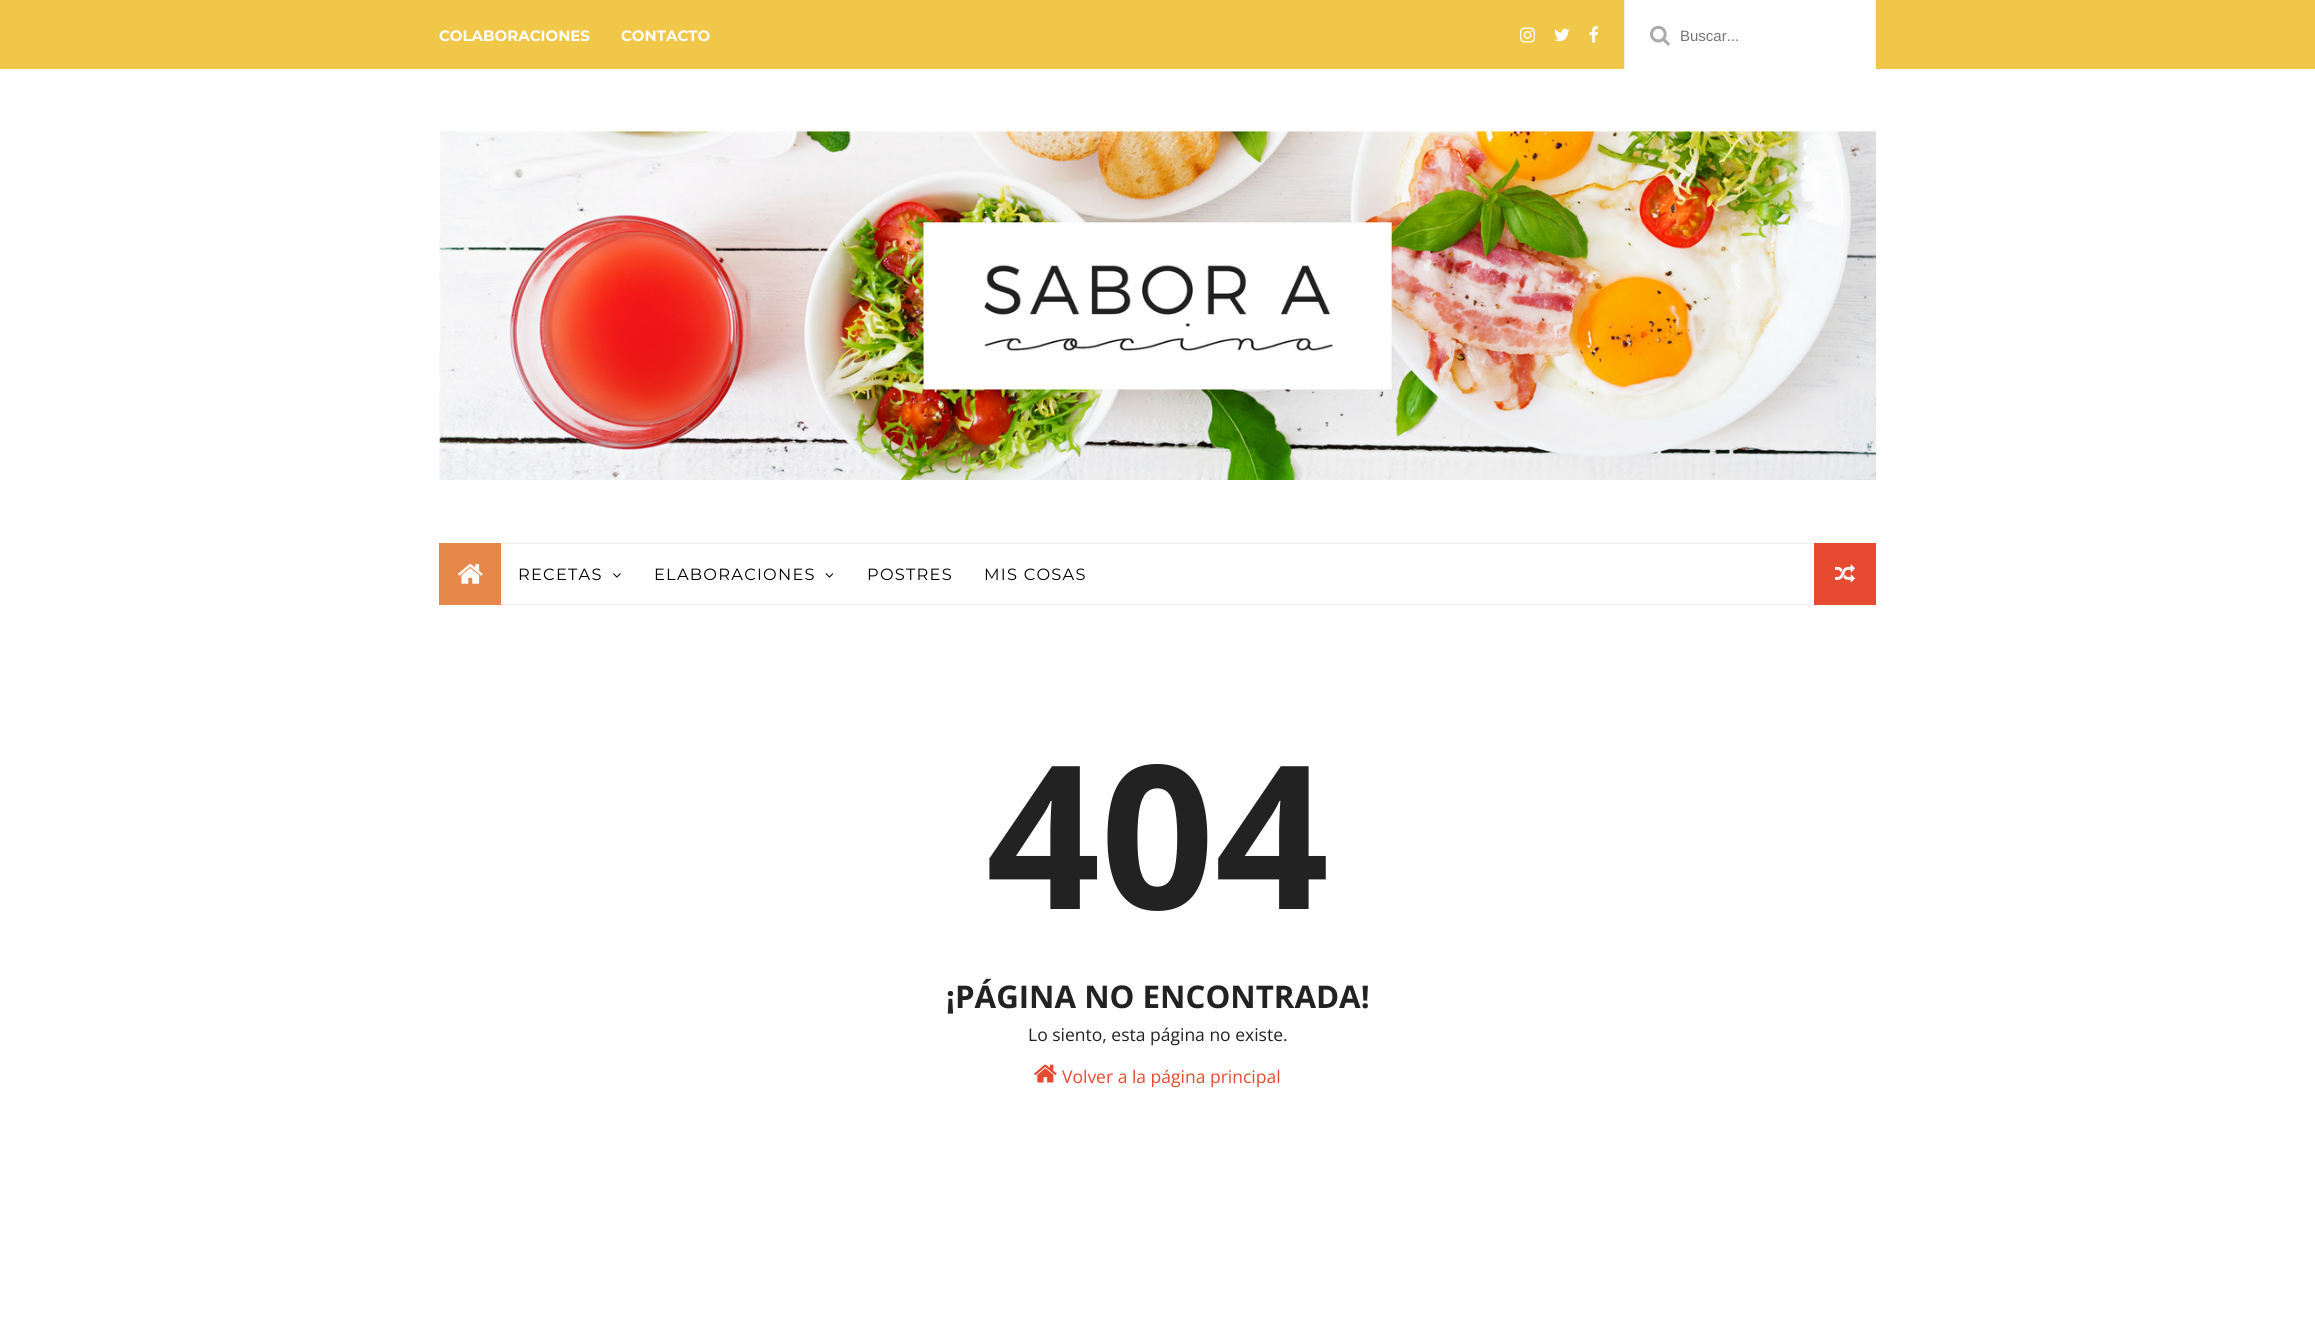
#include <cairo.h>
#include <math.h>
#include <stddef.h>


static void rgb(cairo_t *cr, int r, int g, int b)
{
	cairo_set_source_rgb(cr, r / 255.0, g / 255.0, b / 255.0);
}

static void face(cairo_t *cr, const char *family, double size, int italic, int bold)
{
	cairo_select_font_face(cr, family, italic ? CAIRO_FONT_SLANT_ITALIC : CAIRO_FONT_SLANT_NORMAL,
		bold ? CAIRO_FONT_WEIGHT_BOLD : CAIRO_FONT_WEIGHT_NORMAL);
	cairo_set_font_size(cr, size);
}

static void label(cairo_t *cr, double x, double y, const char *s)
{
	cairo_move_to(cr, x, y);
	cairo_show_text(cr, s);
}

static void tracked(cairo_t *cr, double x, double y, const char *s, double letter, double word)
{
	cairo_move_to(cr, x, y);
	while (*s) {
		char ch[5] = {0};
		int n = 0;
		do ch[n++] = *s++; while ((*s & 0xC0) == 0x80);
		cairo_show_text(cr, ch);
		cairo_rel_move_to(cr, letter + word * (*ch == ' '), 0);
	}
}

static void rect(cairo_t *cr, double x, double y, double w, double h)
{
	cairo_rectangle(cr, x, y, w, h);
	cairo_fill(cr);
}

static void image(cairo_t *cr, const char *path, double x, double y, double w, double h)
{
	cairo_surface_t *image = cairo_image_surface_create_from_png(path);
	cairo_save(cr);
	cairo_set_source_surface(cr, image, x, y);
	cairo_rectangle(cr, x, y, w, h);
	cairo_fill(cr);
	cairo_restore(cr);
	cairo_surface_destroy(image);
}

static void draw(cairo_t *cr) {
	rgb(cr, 255, 255, 255);
	cairo_paint(cr);
	rgb(cr, 241, 199, 74);
	rect(cr, 0, 0, 2315, 69);
	face(cr, "Montserrat", 15, 0, 1);
	rgb(cr, 255, 255, 255);
	label(cr, 439, 41, "COLABORACIONES");
	label(cr, 621, 41, "CONTACTO");
	image(cr, "image0.png", 1520, 27, 15, 16);
	image(cr, "image1.png", 1554, 28, 16, 14);
	image(cr, "image2.png", 1589, 26, 10, 17);
	rect(cr, 1625, 0, 251, 69);
	rgb(cr, 240, 240, 240);
	rect(cr, 1624, 0, 1, 69);
	image(cr, "image3.png", 1650, 25, 20, 21);
	face(cr, "Liberation Sans", 15, 0, 0);
	rgb(cr, 117, 117, 117);
	label(cr, 1680, 41, "Buscar...");
	image(cr, "image4.png", 439, 131, 1438, 349);
	rgb(cr, 238, 238, 238);
	rect(cr, 501, 543, 1313, 1);
	rect(cr, 501, 604, 1313, 1);
	rgb(cr, 230, 136, 73);
	rect(cr, 439, 543, 62, 62);
	image(cr, "image5.png", 458, 564, 25, 20);
	face(cr, "Montserrat", 16.25, 0, 0);
	rgb(cr, 0, 0, 0);
	tracked(cr, 518, 580, "RECETAS", 1.25, 0);
	image(cr, "image6.png", 613, 573, 8, 5);
	tracked(cr, 654, 580, "ELABORACIONES", 1.25, 0);
	image(cr, "image7.png", 825, 573, 9, 5);
	tracked(cr, 867, 580, "POSTRES", 1.25, 0);
	tracked(cr, 984, 580, "MIS COSAS", 1.25, 0);
	rgb(cr, 230, 74, 49);
	rect(cr, 1814, 543, 62, 62);
	image(cr, "image8.png", 1835, 564, 20, 19);
	face(cr, "Open Sans", 200, 0, 1);
	rgb(cr, 34, 34, 34);
	label(cr, 986, 909, "404");
	face(cr, "Open Sans", 31.25, 0, 1);
	label(cr, 946, 1008, "¡PÁGINA NO ENCONTRADA!");
	face(cr, "Open Sans", 17.5, 0, 0);
	label(cr, 1028, 1041, "Lo siento, esta página no existe.");
	image(cr, "image9.png", 1034, 1064, 23, 19);
	rgb(cr, 230, 74, 49);
	label(cr, 1062, 1083, "Volver a la página principal");
}

int main(void) {
	cairo_surface_t *surface = cairo_image_surface_create(CAIRO_FORMAT_RGB24, 2315, 1326);
	cairo_t *cr = cairo_create(surface);
	cairo_font_options_t *options = cairo_font_options_create();
	cairo_font_options_set_hint_metrics(options, CAIRO_HINT_METRICS_OFF);
	cairo_font_options_set_hint_style(options, CAIRO_HINT_STYLE_NONE);
	cairo_set_font_options(cr, options);
	cairo_set_miter_limit(cr, 4);
	draw(cr);
	cairo_surface_write_to_png(surface, "render.png");
	cairo_font_options_destroy(options);
	cairo_destroy(cr);
	cairo_surface_destroy(surface);
	return 0;
}
